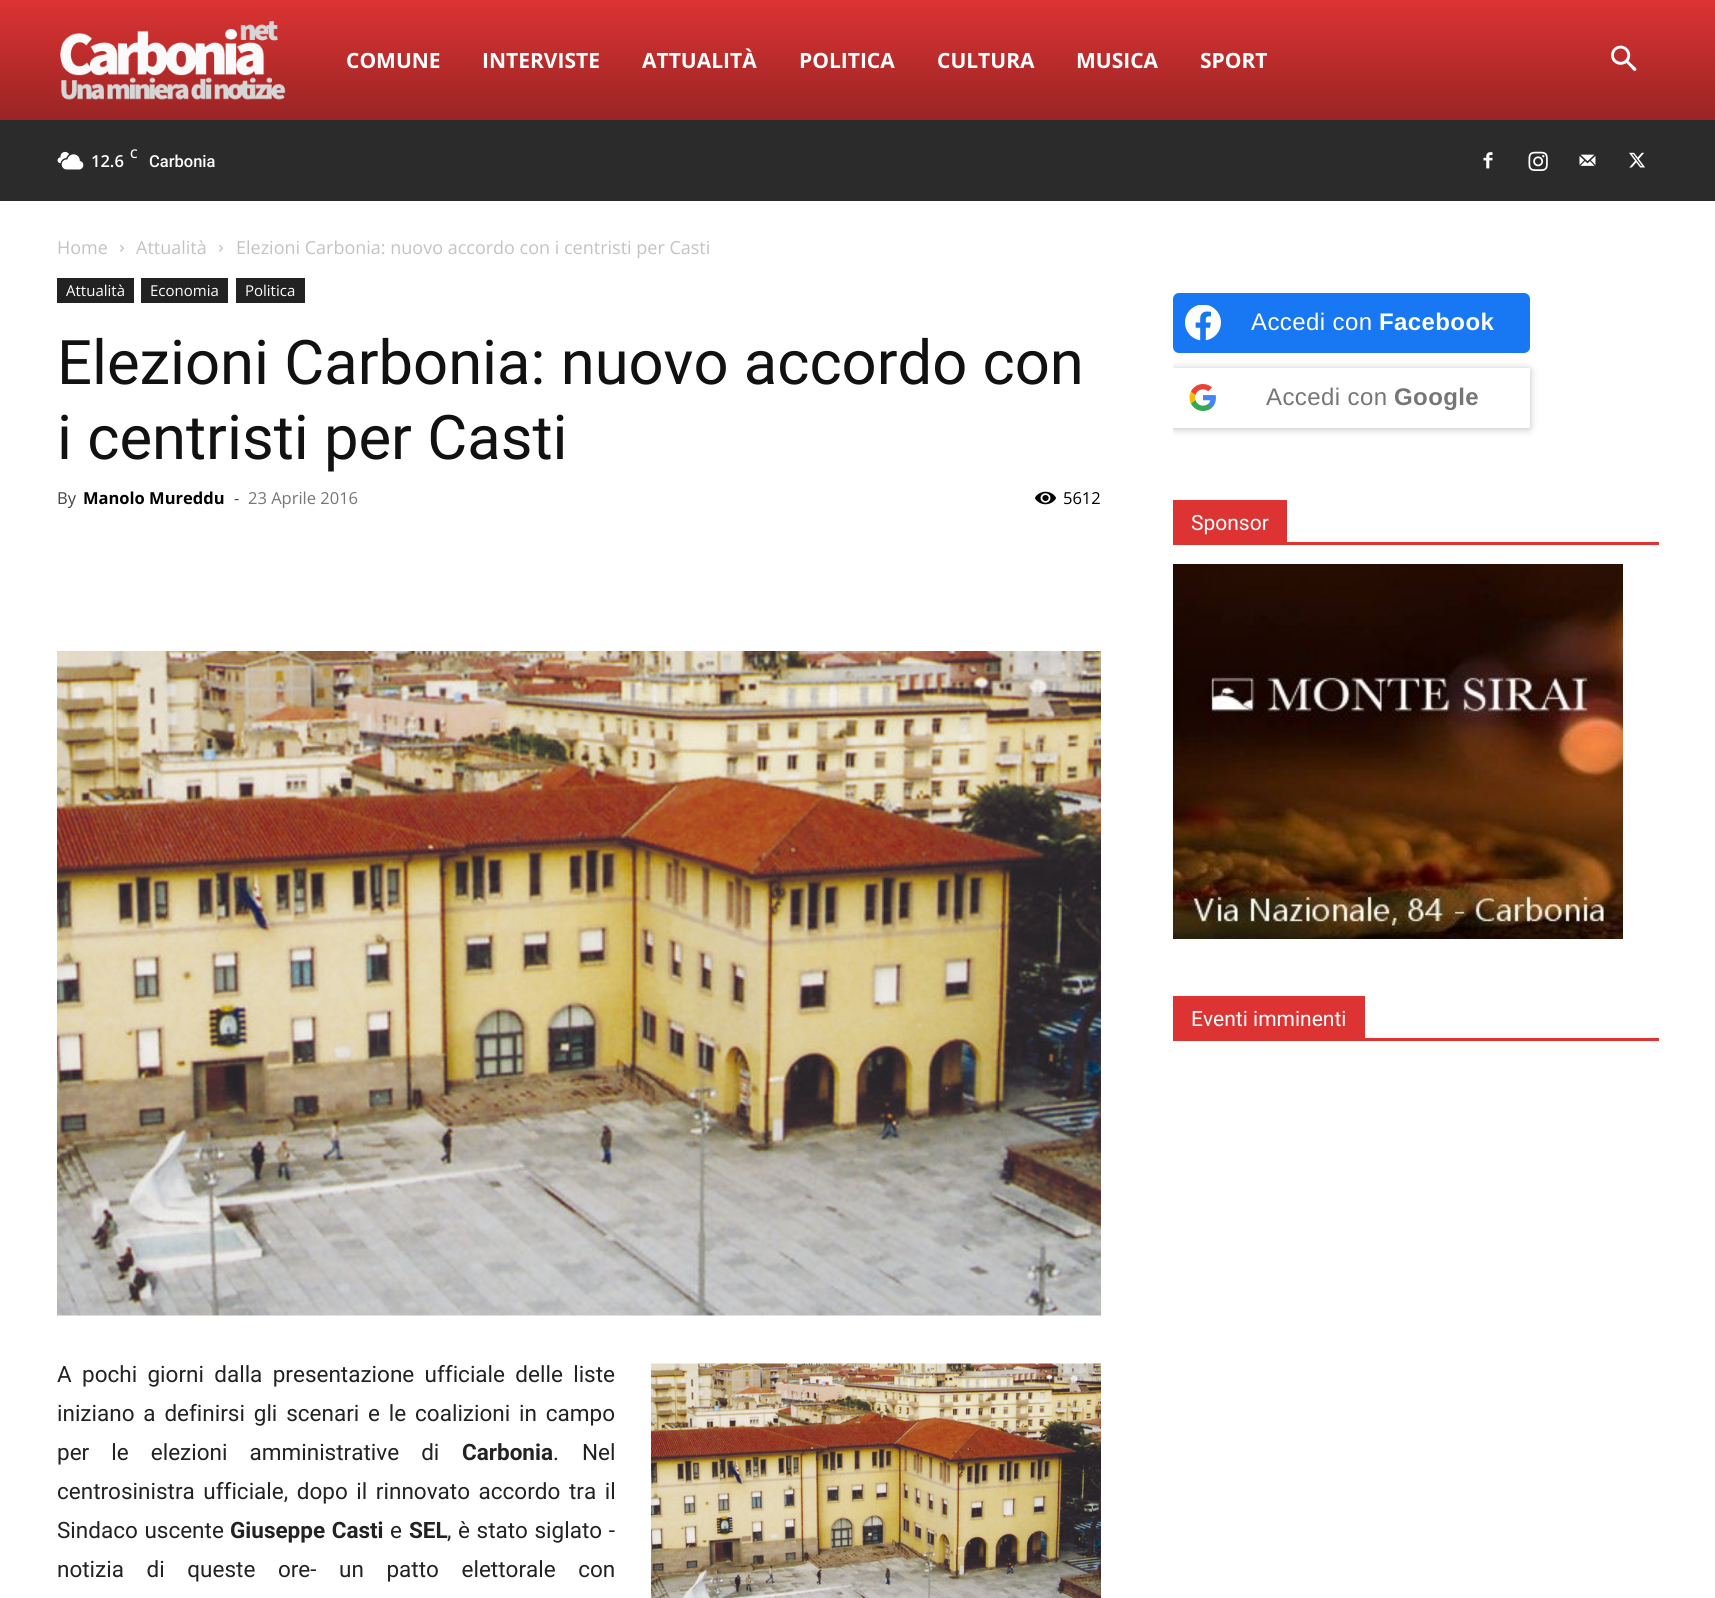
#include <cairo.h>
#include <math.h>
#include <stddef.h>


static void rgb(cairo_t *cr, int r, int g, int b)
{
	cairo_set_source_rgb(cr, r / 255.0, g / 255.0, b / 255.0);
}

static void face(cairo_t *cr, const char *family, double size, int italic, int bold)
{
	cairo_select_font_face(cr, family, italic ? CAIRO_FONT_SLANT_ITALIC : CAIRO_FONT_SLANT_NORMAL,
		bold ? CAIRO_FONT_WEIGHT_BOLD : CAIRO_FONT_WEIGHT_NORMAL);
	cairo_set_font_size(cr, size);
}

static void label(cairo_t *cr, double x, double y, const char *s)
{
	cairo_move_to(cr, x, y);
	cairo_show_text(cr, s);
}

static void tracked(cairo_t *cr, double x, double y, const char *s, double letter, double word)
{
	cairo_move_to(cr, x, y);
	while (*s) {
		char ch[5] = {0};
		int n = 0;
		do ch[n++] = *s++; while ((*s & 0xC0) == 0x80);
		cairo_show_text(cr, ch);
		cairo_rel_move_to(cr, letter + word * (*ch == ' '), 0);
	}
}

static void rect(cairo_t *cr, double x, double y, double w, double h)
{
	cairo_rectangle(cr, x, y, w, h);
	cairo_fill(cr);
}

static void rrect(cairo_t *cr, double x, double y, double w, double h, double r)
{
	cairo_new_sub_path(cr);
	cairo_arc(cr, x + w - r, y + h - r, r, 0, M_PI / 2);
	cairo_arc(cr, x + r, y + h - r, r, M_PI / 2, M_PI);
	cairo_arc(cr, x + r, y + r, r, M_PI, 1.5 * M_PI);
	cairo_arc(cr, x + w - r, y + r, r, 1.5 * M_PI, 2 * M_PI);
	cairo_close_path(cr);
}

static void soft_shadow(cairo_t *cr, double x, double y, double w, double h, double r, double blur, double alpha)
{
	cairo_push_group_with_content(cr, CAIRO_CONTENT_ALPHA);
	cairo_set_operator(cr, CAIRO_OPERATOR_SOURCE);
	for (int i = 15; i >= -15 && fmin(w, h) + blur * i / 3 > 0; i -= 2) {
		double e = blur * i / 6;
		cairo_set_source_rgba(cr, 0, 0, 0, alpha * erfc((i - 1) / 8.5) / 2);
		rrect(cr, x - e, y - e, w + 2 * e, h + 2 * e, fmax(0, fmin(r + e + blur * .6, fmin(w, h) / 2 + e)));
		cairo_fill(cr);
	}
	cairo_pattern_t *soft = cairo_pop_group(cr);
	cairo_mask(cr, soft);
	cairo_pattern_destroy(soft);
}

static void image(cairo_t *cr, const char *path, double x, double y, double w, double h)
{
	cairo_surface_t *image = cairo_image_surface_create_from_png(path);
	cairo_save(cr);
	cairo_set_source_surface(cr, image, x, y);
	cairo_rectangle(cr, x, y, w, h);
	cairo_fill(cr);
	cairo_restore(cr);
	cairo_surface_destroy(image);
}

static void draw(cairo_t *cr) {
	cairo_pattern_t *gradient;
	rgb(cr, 255, 255, 255);
	cairo_paint(cr);
	gradient = cairo_pattern_create_linear(858, 0, 858, 120);
	cairo_pattern_add_color_stop_rgba(gradient, 0, 0.863, 0.2, 0.2, 1);
	cairo_pattern_add_color_stop_rgba(gradient, 1, 0.604, 0.141, 0.141, 1);
	cairo_set_source(cr, gradient);
	cairo_pattern_destroy(gradient);
	rect(cr, 0, 0, 1715, 120);
	image(cr, "image0.png", 60, 21, 226, 79);
	face(cr, "Open Sans", 21, 0, 1);
	rgb(cr, 255, 255, 255);
	label(cr, 346, 68, "COMUNE");
	label(cr, 482, 68, "INTERVISTE");
	label(cr, 642, 68, "ATTUALITÀ");
	label(cr, 799, 68, "POLITICA");
	label(cr, 937, 68, "CULTURA");
	label(cr, 1076, 68, "MUSICA");
	label(cr, 1200, 68, "SPORT");
	image(cr, "image1.png", 1611, 45, 26, 26);
	rgb(cr, 43, 43, 43);
	rect(cr, 0, 120, 1715, 81);
	image(cr, "image2.png", 57, 151, 27, 19);
	face(cr, "Open Sans SemiBold", 12, 0, 0);
	rgb(cr, 255, 255, 255);
	label(cr, 130, 158, "C");
	face(cr, "Open Sans SemiBold", 16.5, 0, 0);
	label(cr, 91, 167, "12.6");
	face(cr, "Roboto Medium", 16.5, 0, 0);
	label(cr, 149, 167, "Carbonia");
	image(cr, "image3.png", 1483, 152, 10, 17);
	image(cr, "image4.png", 1528, 151, 20, 20);
	image(cr, "image5.png", 1579, 154, 17, 12);
	image(cr, "image6.png", 1629, 152, 16, 16);
	face(cr, "Open Sans", 18, 0, 0);
	rgb(cr, 195, 195, 195);
	label(cr, 57, 254, "Home");
	image(cr, "image7.png", 120, 245, 4, 7);
	label(cr, 136, 254, "Attualità");
	image(cr, "image7.png", 219, 245, 4, 7);
	label(cr, 236, 254, "Elezioni Carbonia: nuovo accordo con i centristi per Casti");
	rgb(cr, 34, 34, 34);
	rect(cr, 57, 278, 77, 25);
	face(cr, "Open Sans", 15, 0, 0);
	rgb(cr, 255, 255, 255);
	label(cr, 66, 296, "Attualità");
	rgb(cr, 34, 34, 34);
	rect(cr, 141, 278, 87, 25);
	rgb(cr, 255, 255, 255);
	label(cr, 150, 296, "Economia");
	rgb(cr, 34, 34, 34);
	rect(cr, 236, 278, 69, 25);
	rgb(cr, 255, 255, 255);
	label(cr, 245, 296, "Politica");
	face(cr, "Roboto", 61.5, 0, 0);
	rgb(cr, 17, 17, 17);
	label(cr, 57, 384, "Elezioni Carbonia: nuovo accordo con");
	label(cr, 57, 459, "i centristi per Casti");
	face(cr, "Open Sans", 16.5, 0, 0);
	rgb(cr, 68, 68, 68);
	label(cr, 57, 504, "By");
	face(cr, "Open Sans", 16.5, 0, 1);
	rgb(cr, 0, 0, 0);
	label(cr, 83, 504, "Manolo Mureddu");
	face(cr, "Open Sans", 16.5, 0, 0);
	rgb(cr, 68, 68, 68);
	label(cr, 234, 504, "-");
	rgb(cr, 118, 118, 118);
	label(cr, 248, 504, "23 Aprile 2016");
	image(cr, "image8.png", 1035, 491, 21, 14);
	rgb(cr, 0, 0, 0);
	label(cr, 1063, 504, "5612");
	image(cr, "image9.png", 57, 651, 1044, 665);
	face(cr, "Roboto", 22.5, 0, 0);
	rgb(cr, 34, 34, 34);
	tracked(cr, 57, 1382, "A pochi giorni dalla presentazione ufficiale delle liste", 0, 4.75);
	tracked(cr, 57, 1421, "iniziano a definirsi gli scenari e le coalizioni in campo", 0, 3.25);
	tracked(cr, 57, 1460, "per le elezioni amministrative di", 0, 16.5);
	face(cr, "Roboto", 22.5, 0, 1);
	label(cr, 462, 1460, "Carbonia");
	face(cr, "Roboto", 22.5, 0, 0);
	label(cr, 553, 1460, ".");
	label(cr, 582, 1460, "Nel");
	tracked(cr, 57, 1499, "centrosinistra ufficiale, dopo il rinnovato accordo tra il", 0, 3);
	tracked(cr, 57, 1538, "Sindaco uscente", 0, 1);
	face(cr, "Roboto", 22.5, 0, 1);
	tracked(cr, 230, 1538, "Giuseppe Casti", 0, 1);
	face(cr, "Roboto", 22.5, 0, 0);
	label(cr, 390, 1538, "e");
	face(cr, "Roboto", 22.5, 0, 1);
	label(cr, 409, 1538, "SEL");
	face(cr, "Roboto", 22.5, 0, 0);
	tracked(cr, 447, 1538, ", è stato siglato -", 0, 1);
	tracked(cr, 57, 1577, "notizia di queste ore- un patto elettorale con", 0, 17);
	image(cr, "image10.png", 651, 1363, 450, 235);
	rgb(cr, 24, 119, 242);
	rrect(cr, 1173, 293, 357, 60, 6);
	cairo_fill(cr);
	image(cr, "image11.png", 1185, 305, 36, 36);
	face(cr, "Liberation Sans", 24, 0, 0);
	rgb(cr, 255, 255, 255);
	tracked(cr, 1251, 330, "Accedi con", 0.4, 0);
	face(cr, "Liberation Sans", 24, 0, 1);
	tracked(cr, 1379, 330, "Facebook", 0.4, 0);
	cairo_save(cr);
	cairo_rectangle(cr, 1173, 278, 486, 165);
	cairo_clip(cr);
	rgb(cr, 0, 0, 0);
	soft_shadow(cr, 1173, 369, 357, 60, 1.5, 4, 0.25);
	cairo_restore(cr);
	rrect(cr, 1173, 368, 357, 60, 1.5);
	cairo_fill(cr);
	image(cr, "image12.png", 1189, 384, 27, 27);
	face(cr, "Liberation Sans", 24, 0, 0);
	rgb(cr, 118, 118, 118);
	tracked(cr, 1266, 405, "Accedi con", 0.4, 0);
	face(cr, "Liberation Sans", 24, 0, 1);
	tracked(cr, 1394, 405, "Google", 0.4, 0);
	rgb(cr, 221, 51, 51);
	rect(cr, 1173, 542, 486, 3);
	rect(cr, 1173, 500, 114, 42);
	face(cr, "Roboto", 21, 0, 0);
	rgb(cr, 255, 255, 255);
	label(cr, 1191, 530, "Sponsor");
	image(cr, "image13.png", 1173, 564, 450, 375);
	rgb(cr, 221, 51, 51);
	rect(cr, 1173, 1038, 486, 3);
	rect(cr, 1173, 996, 192, 42);
	rgb(cr, 255, 255, 255);
	label(cr, 1191, 1026, "Eventi imminenti");
}

int main(void) {
	cairo_surface_t *surface = cairo_image_surface_create(CAIRO_FORMAT_RGB24, 1715, 1598);
	cairo_t *cr = cairo_create(surface);
	cairo_font_options_t *options = cairo_font_options_create();
	cairo_font_options_set_hint_metrics(options, CAIRO_HINT_METRICS_OFF);
	cairo_font_options_set_hint_style(options, CAIRO_HINT_STYLE_NONE);
	cairo_set_font_options(cr, options);
	cairo_set_miter_limit(cr, 4);
	draw(cr);
	cairo_surface_write_to_png(surface, "render.png");
	cairo_font_options_destroy(options);
	cairo_destroy(cr);
	cairo_surface_destroy(surface);
	return 0;
}
